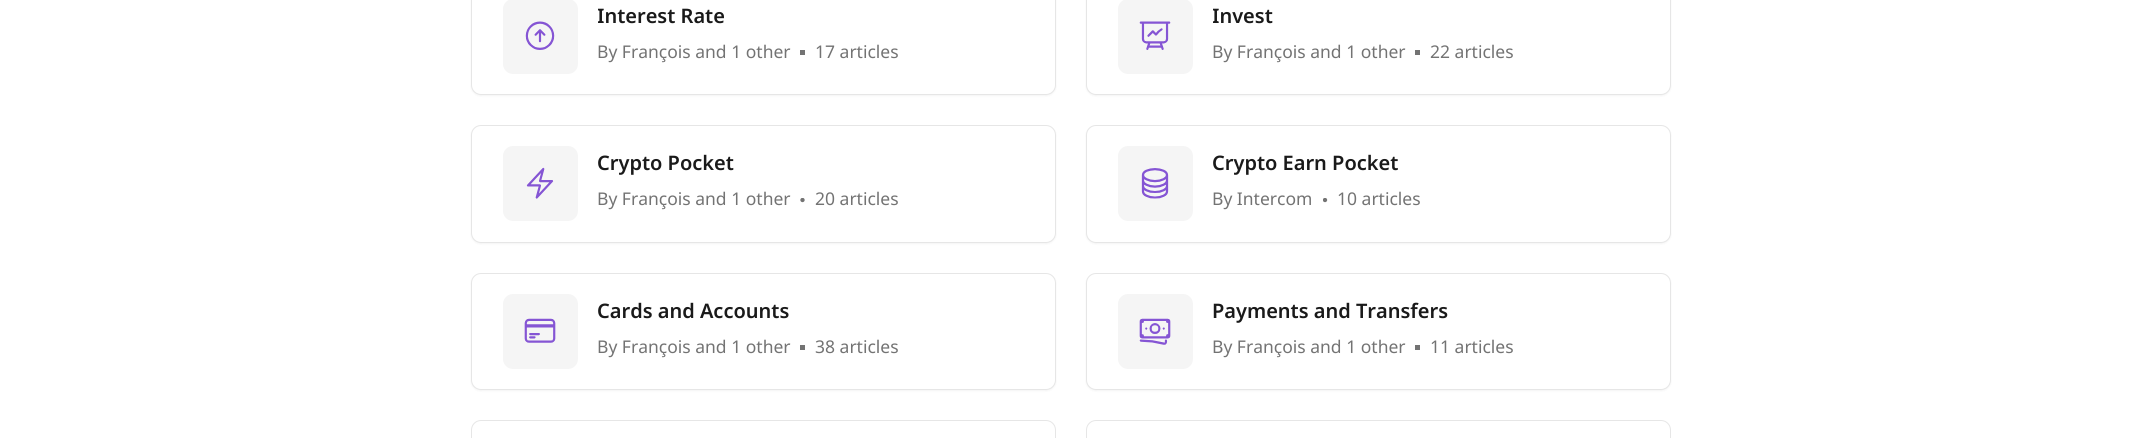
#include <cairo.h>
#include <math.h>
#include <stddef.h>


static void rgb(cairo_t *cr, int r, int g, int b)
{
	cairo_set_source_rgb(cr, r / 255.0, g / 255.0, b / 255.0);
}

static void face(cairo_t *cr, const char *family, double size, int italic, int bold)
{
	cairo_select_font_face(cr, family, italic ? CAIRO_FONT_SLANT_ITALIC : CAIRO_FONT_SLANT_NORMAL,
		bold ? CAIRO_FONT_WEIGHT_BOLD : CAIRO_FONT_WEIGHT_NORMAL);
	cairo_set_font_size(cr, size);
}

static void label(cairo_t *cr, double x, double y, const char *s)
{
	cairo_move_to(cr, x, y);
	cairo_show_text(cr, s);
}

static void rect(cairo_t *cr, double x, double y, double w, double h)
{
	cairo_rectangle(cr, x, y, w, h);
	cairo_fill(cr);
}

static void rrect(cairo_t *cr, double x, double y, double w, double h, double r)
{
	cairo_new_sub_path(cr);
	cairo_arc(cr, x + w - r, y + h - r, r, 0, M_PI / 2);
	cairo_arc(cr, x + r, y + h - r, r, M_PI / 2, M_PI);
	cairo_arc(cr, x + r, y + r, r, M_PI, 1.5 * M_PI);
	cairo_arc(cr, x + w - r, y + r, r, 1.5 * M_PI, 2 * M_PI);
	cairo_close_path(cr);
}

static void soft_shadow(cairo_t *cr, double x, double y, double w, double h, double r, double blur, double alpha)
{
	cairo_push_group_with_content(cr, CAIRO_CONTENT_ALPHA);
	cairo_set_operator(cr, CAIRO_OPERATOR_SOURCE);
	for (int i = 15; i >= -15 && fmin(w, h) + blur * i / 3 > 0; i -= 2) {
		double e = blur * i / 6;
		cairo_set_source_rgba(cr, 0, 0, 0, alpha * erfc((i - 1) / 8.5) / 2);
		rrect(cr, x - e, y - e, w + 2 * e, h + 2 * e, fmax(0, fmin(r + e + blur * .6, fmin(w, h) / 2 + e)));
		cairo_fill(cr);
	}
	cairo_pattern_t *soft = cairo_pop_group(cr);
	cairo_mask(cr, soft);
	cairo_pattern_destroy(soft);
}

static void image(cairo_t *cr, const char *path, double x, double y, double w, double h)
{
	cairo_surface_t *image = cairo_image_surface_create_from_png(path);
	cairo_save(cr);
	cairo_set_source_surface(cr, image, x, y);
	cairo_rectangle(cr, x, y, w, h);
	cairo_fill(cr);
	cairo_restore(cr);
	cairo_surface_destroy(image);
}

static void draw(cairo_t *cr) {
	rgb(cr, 255, 255, 255);
	cairo_paint(cr);
	rgb(cr, 0, 0, 0);
	soft_shadow(cr, 471, -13, 585, 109, 10, 1, 0.05);
	rgb(cr, 255, 255, 255);
	rrect(cr, 471.5, -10.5, 584, 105, 9.5);
	cairo_fill_preserve(cr);
	rgb(cr, 230, 230, 230);
	cairo_set_line_width(cr, 1);
	cairo_stroke(cr);
	rgb(cr, 245, 245, 245);
	rrect(cr, 503, -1, 75, 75, 10);
	cairo_fill(cr);
	image(cr, "image0.png", 525, 21, 30, 29);
	cairo_save(cr);
	cairo_rectangle(cr, 598, 0, 427, 30);
	cairo_clip(cr);
	face(cr, "Noto Sans SemiBold", 20, 0, 0);
	rgb(cr, 26, 26, 26);
	label(cr, 597, 23, "Interest Rate");
	cairo_restore(cr);
	face(cr, "Noto Sans", 17.5, 0, 0);
	rgb(cr, 115, 115, 115);
	label(cr, 597, 58, "By François and 1 other");
	rect(cr, 800, 50, 5, 5);
	label(cr, 815, 58, "17 articles");
	rgb(cr, 0, 0, 0);
	soft_shadow(cr, 1086, -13, 585, 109, 10, 1, 0.05);
	rgb(cr, 255, 255, 255);
	rrect(cr, 1086.5, -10.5, 584, 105, 9.5);
	cairo_fill_preserve(cr);
	rgb(cr, 230, 230, 230);
	cairo_stroke(cr);
	rgb(cr, 245, 245, 245);
	rrect(cr, 1118, -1, 75, 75, 10);
	cairo_fill(cr);
	image(cr, "image1.png", 1139, 21, 32, 29);
	cairo_save(cr);
	cairo_rectangle(cr, 1213, 0, 427, 30);
	cairo_clip(cr);
	face(cr, "Noto Sans SemiBold", 20, 0, 0);
	rgb(cr, 26, 26, 26);
	label(cr, 1212, 23, "Invest");
	cairo_restore(cr);
	rgb(cr, 115, 115, 115);
	label(cr, 1212, 58, "By François and 1 other");
	rect(cr, 1415, 50, 5, 5);
	label(cr, 1430, 58, "22 articles");
	rgb(cr, 0, 0, 0);
	soft_shadow(cr, 471, 126, 585, 118, 10, 1, 0.05);
	rgb(cr, 255, 255, 255);
	rrect(cr, 471.5, 125.5, 584, 117, 9.5);
	cairo_fill_preserve(cr);
	rgb(cr, 230, 230, 230);
	cairo_stroke(cr);
	rgb(cr, 245, 245, 245);
	rrect(cr, 503, 146, 75, 75, 10);
	cairo_fill(cr);
	image(cr, "image2.png", 526, 167, 28, 32);
	face(cr, "Noto Sans SemiBold", 20, 0, 0);
	rgb(cr, 26, 26, 26);
	label(cr, 597, 170, "Crypto Pocket");
	face(cr, "Noto Sans", 17.5, 0, 0);
	rgb(cr, 115, 115, 115);
	label(cr, 597, 205, "By François and 1 other");
	image(cr, "image3.png", 800, 198, 5, 5);
	label(cr, 815, 205, "20 articles");
	rgb(cr, 0, 0, 0);
	soft_shadow(cr, 1086, 126, 585, 118, 10, 1, 0.05);
	rgb(cr, 255, 255, 255);
	rrect(cr, 1086.5, 125.5, 584, 117, 9.5);
	cairo_fill_preserve(cr);
	rgb(cr, 230, 230, 230);
	cairo_stroke(cr);
	rgb(cr, 245, 245, 245);
	rrect(cr, 1118, 146, 75, 75, 10);
	cairo_fill(cr);
	image(cr, "image4.png", 1141, 168, 28, 31);
	face(cr, "Noto Sans SemiBold", 20, 0, 0);
	rgb(cr, 26, 26, 26);
	label(cr, 1212, 170, "Crypto Earn Pocket");
	face(cr, "Noto Sans", 17.5, 0, 0);
	rgb(cr, 115, 115, 115);
	label(cr, 1212, 205, "By Intercom");
	image(cr, "image5.png", 1323, 198, 5, 5);
	label(cr, 1337, 205, "10 articles");
	rgb(cr, 0, 0, 0);
	soft_shadow(cr, 471, 274, 585, 117, 10, 1, 0.05);
	rgb(cr, 255, 255, 255);
	rrect(cr, 471.5, 273.5, 584, 116, 9.5);
	cairo_fill_preserve(cr);
	rgb(cr, 230, 230, 230);
	cairo_stroke(cr);
	rgb(cr, 245, 245, 245);
	rrect(cr, 503, 294, 75, 75, 10);
	cairo_fill(cr);
	image(cr, "image6.png", 524, 318, 32, 25);
	face(cr, "Noto Sans SemiBold", 20, 0, 0);
	rgb(cr, 26, 26, 26);
	label(cr, 597, 318, "Cards and Accounts");
	face(cr, "Noto Sans", 17.5, 0, 0);
	rgb(cr, 115, 115, 115);
	label(cr, 597, 353, "By François and 1 other");
	rect(cr, 800, 345, 5, 5);
	label(cr, 815, 353, "38 articles");
	rgb(cr, 0, 0, 0);
	soft_shadow(cr, 1086, 274, 585, 117, 10, 1, 0.05);
	rgb(cr, 255, 255, 255);
	rrect(cr, 1086.5, 273.5, 584, 116, 9.5);
	cairo_fill_preserve(cr);
	rgb(cr, 230, 230, 230);
	cairo_stroke(cr);
	rgb(cr, 245, 245, 245);
	rrect(cr, 1118, 294, 75, 75, 10);
	cairo_fill(cr);
	image(cr, "image7.png", 1139, 318, 32, 27);
	face(cr, "Noto Sans SemiBold", 20, 0, 0);
	rgb(cr, 26, 26, 26);
	label(cr, 1212, 318, "Payments and Transfers");
	face(cr, "Noto Sans", 17.5, 0, 0);
	rgb(cr, 115, 115, 115);
	label(cr, 1212, 353, "By François and 1 other");
	rect(cr, 1415, 345, 5, 5);
	label(cr, 1430, 353, "11 articles");
	rrect(cr, 471.5, 420.5, 584, 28, 9.5);
	rgb(cr, 230, 230, 230);
	cairo_stroke(cr);
	rrect(cr, 1086.5, 420.5, 584, 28, 9.5);
	cairo_stroke(cr);
}

int main(void) {
	cairo_surface_t *surface = cairo_image_surface_create(CAIRO_FORMAT_RGB24, 2141, 438);
	cairo_t *cr = cairo_create(surface);
	cairo_font_options_t *options = cairo_font_options_create();
	cairo_font_options_set_hint_metrics(options, CAIRO_HINT_METRICS_OFF);
	cairo_font_options_set_hint_style(options, CAIRO_HINT_STYLE_NONE);
	cairo_set_font_options(cr, options);
	cairo_set_miter_limit(cr, 4);
	draw(cr);
	cairo_surface_write_to_png(surface, "render.png");
	cairo_font_options_destroy(options);
	cairo_destroy(cr);
	cairo_surface_destroy(surface);
	return 0;
}
